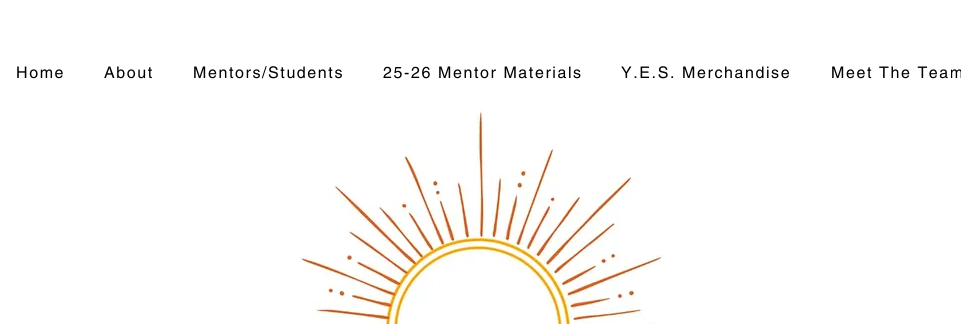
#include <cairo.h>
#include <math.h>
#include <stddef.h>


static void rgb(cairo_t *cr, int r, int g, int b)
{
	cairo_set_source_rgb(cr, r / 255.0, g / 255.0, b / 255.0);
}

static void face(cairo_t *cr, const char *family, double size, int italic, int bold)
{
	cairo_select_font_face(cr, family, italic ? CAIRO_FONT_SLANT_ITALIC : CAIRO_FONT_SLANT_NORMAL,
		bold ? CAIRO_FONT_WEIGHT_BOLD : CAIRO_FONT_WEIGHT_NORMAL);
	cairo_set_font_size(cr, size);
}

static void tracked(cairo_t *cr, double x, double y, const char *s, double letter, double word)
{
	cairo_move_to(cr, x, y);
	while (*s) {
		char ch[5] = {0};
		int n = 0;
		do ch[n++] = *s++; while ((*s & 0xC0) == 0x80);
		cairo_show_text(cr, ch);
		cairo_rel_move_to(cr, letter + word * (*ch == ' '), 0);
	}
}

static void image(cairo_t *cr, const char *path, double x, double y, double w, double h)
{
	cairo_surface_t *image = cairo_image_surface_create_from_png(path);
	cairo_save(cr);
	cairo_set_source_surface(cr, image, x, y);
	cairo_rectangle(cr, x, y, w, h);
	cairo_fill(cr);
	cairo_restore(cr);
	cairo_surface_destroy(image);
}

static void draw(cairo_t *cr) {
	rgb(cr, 255, 255, 255);
	cairo_paint(cr);
	face(cr, "helvetica", 16, 0, 0);
	rgb(cr, 0, 0, 0);
	tracked(cr, 16, 78, "Home", 1.6, 0);
	tracked(cr, 104, 78, "About", 1.6, 0);
	tracked(cr, 193, 78, "Mentors/Students", 1.6, 0);
	tracked(cr, 383, 78, "25-26 Mentor Materials", 1.6, 0);
	tracked(cr, 621, 78, "Y.E.S. Merchandise", 1.6, 0);
	tracked(cr, 831, 78, "Meet The Team", 1.6, 0);
	image(cr, "image0.png", 300, 110, 364, 214);
}

int main(void) {
	cairo_surface_t *surface = cairo_image_surface_create(CAIRO_FORMAT_RGB24, 961, 324);
	cairo_t *cr = cairo_create(surface);
	cairo_font_options_t *options = cairo_font_options_create();
	cairo_font_options_set_hint_metrics(options, CAIRO_HINT_METRICS_OFF);
	cairo_font_options_set_hint_style(options, CAIRO_HINT_STYLE_NONE);
	cairo_set_font_options(cr, options);
	cairo_set_miter_limit(cr, 4);
	draw(cr);
	cairo_surface_write_to_png(surface, "render.png");
	cairo_font_options_destroy(options);
	cairo_destroy(cr);
	cairo_surface_destroy(surface);
	return 0;
}
